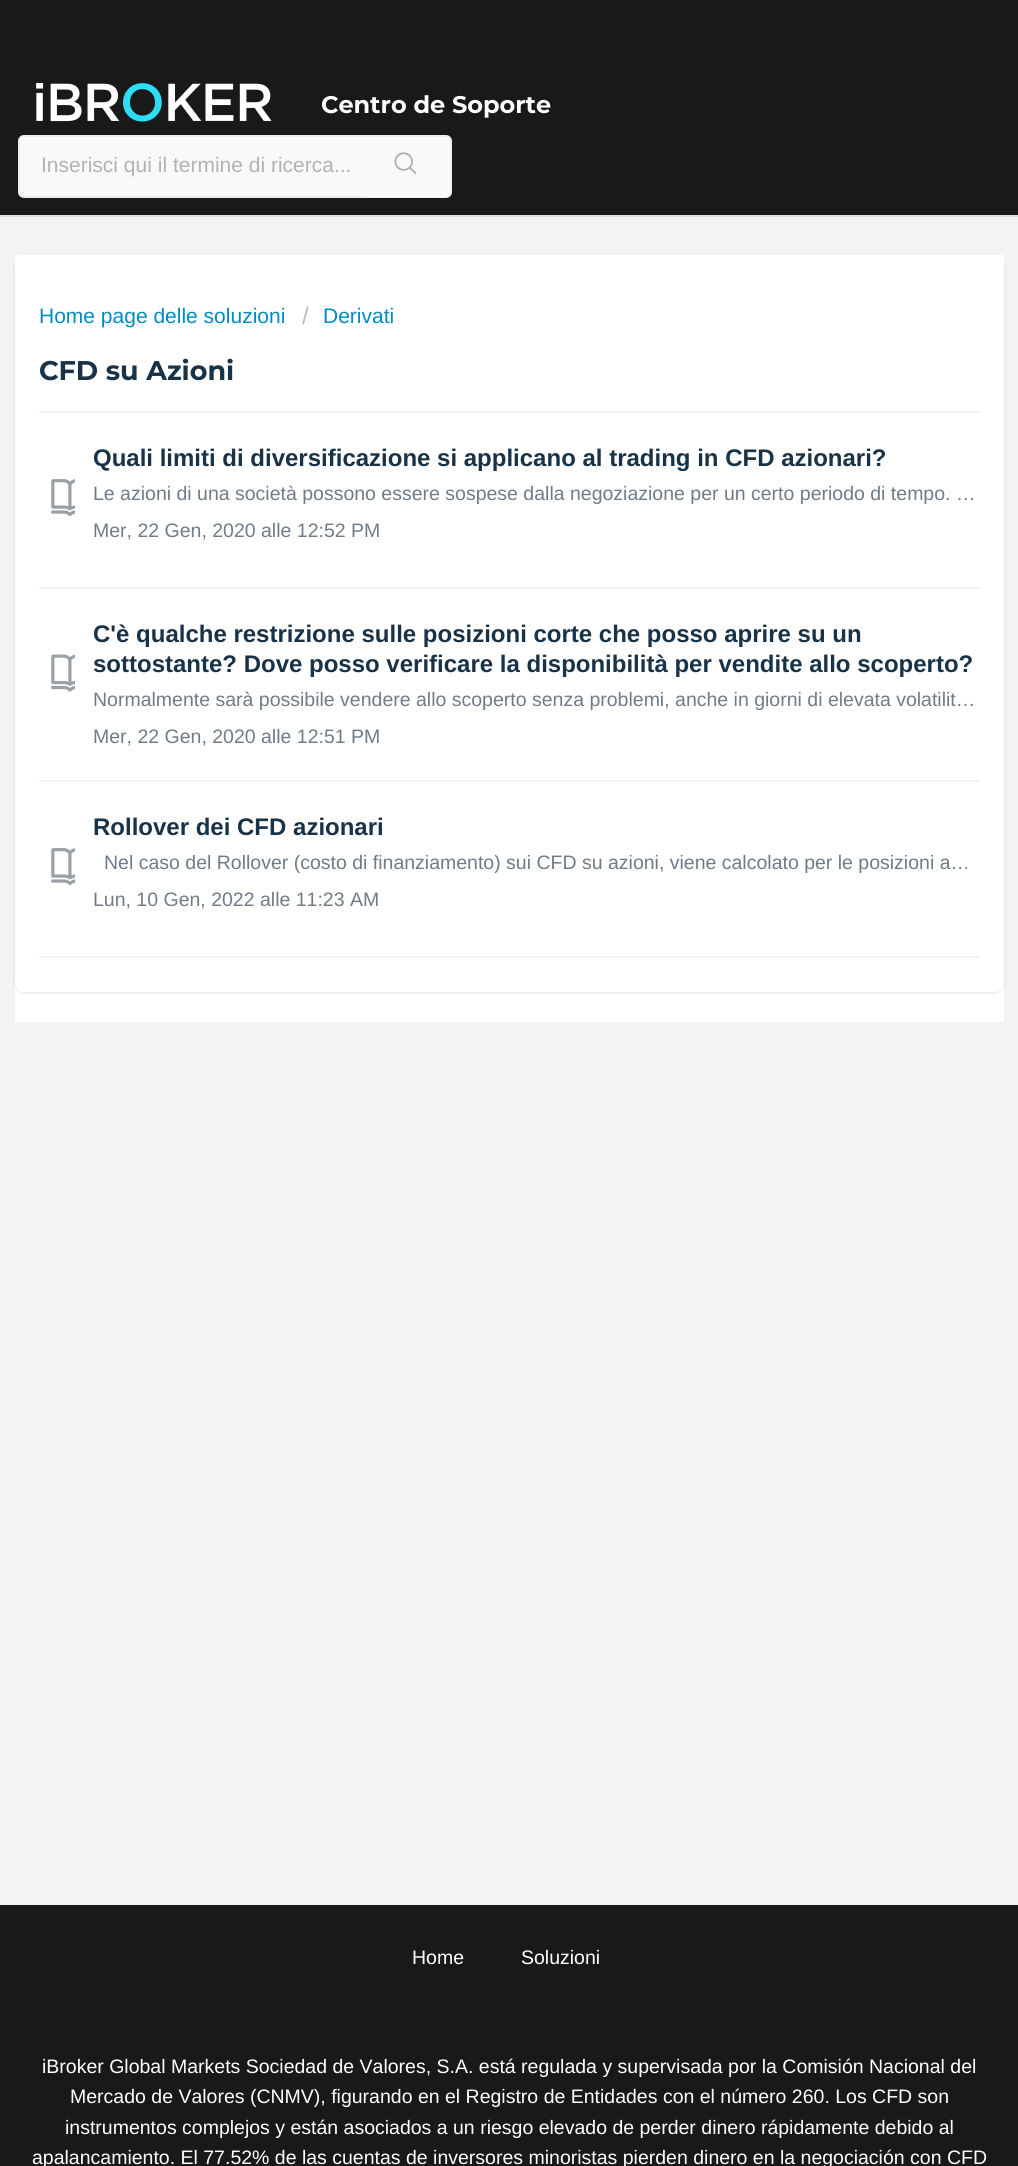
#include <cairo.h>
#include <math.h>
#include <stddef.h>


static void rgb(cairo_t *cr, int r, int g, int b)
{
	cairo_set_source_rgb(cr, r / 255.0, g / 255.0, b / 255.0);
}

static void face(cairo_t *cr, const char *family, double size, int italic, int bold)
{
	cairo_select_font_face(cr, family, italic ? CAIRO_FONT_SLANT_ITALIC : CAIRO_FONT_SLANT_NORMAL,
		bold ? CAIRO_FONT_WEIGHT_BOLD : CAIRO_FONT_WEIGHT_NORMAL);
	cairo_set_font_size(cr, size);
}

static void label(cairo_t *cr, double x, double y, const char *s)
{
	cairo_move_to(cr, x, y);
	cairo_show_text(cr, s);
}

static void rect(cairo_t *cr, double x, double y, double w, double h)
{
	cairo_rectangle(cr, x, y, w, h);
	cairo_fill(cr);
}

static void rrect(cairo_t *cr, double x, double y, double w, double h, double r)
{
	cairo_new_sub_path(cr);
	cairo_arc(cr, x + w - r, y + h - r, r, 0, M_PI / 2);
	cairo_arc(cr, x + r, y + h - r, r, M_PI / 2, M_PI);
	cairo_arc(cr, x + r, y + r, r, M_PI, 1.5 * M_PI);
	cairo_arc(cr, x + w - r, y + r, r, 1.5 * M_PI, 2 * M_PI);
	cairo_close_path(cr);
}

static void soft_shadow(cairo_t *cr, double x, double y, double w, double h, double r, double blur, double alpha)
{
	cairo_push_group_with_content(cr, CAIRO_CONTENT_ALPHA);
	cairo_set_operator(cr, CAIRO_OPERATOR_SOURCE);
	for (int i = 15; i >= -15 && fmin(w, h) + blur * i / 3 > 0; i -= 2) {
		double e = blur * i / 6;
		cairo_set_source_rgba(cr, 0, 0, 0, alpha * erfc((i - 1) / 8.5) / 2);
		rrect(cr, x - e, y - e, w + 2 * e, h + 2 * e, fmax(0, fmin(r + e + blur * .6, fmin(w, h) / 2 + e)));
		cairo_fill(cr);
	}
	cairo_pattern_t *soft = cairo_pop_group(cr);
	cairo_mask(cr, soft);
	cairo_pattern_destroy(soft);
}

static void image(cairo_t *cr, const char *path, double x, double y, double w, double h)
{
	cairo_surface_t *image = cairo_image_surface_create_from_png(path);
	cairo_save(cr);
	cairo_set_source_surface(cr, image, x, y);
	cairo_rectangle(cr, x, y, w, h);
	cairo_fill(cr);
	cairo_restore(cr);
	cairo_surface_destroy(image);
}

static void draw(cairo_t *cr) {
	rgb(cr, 243, 243, 243);
	cairo_paint(cr);
	rgb(cr, 25, 25, 25);
	rect(cr, 0, 0, 1018, 215);
	rgb(cr, 218, 223, 227);
	rect(cr, 0, 215, 1018, 2);
	image(cr, "image0.png", 36, 83, 236, 39);
	face(cr, "Montserrat", 24, 0, 1);
	rgb(cr, 255, 255, 255);
	label(cr, 321, 113, "Centro de Soporte");
	rgb(cr, 248, 249, 250);
	rrect(cr, 19, 136, 432, 61, 5);
	cairo_fill_preserve(cr);
	rgb(cr, 235, 238, 240);
	cairo_stroke(cr);
	face(cr, "Liberation Sans", 21, 0, 0);
	rgb(cr, 178, 178, 178);
	label(cr, 41, 172, "Inserisci qui il termine di ricerca...");
	rgb(cr, 248, 249, 250);
	rrect(cr, 363, 137, 87, 60, 3);
	cairo_fill(cr);
	image(cr, "image1.png", 394, 152, 23, 23);
	rgb(cr, 255, 255, 255);
	rect(cr, 15, 255, 989, 767);
	rgb(cr, 63, 63, 68);
	soft_shadow(cr, 15, 257, 989, 736, 9, 1.5, 0.15);
	rgb(cr, 255, 255, 255);
	rrect(cr, 15, 255, 989, 737, 9);
	cairo_fill(cr);
	rgb(cr, 0, 139, 193);
	label(cr, 39, 323, "Home page delle soluzioni");
	face(cr, "Liberation Sans", 24, 0, 0);
	rgb(cr, 187, 187, 187);
	label(cr, 302, 324, "/");
	face(cr, "Liberation Sans", 21, 0, 0);
	rgb(cr, 0, 139, 193);
	label(cr, 323, 323, "Derivati");
	face(cr, "Montserrat", 27, 0, 1);
	rgb(cr, 24, 50, 71);
	label(cr, 39, 380, "CFD su Azioni");
	rgb(cr, 243, 243, 243);
	rect(cr, 39, 956, 941, 2);
	rect(cr, 39, 411, 941, 2);
	face(cr, "Liberation Sans", 24, 0, 1);
	rgb(cr, 24, 50, 71);
	label(cr, 93, 466, "Quali limiti di diversificazione si applicano al trading in CFD azionari?");
	image(cr, "image2.png", 51, 479, 24, 38);
	face(cr, "Liberation Sans", 19.5, 0, 0);
	rgb(cr, 111, 124, 135);
	label(cr, 93, 500, "Le azioni di una società possono essere sospese dalla negoziazione per un certo periodo di tempo. …");
	label(cr, 93, 537, "Mer, 22 Gen, 2020 alle 12:52 PM");
	rgb(cr, 243, 243, 243);
	rect(cr, 39, 587, 941, 2);
	image(cr, "image3.png", 51, 654, 24, 38);
	face(cr, "Liberation Sans", 24, 0, 1);
	rgb(cr, 24, 50, 71);
	label(cr, 93, 642, "C'è qualche restrizione sulle posizioni corte che posso aprire su un");
	label(cr, 93, 672, "sottostante? Dove posso verificare la disponibilità per vendite allo scoperto?");
	face(cr, "Liberation Sans", 19.5, 0, 0);
	rgb(cr, 111, 124, 135);
	label(cr, 93, 706, "Normalmente sarà possibile vendere allo scoperto senza problemi, anche in giorni di elevata volatilit…");
	label(cr, 93, 743, "Mer, 22 Gen, 2020 alle 12:51 PM");
	rgb(cr, 243, 243, 243);
	rect(cr, 39, 780, 941, 2);
	face(cr, "Liberation Sans", 24, 0, 1);
	rgb(cr, 24, 50, 71);
	label(cr, 93, 835, "Rollover dei CFD azionari");
	image(cr, "image2.png", 51, 848, 24, 38);
	face(cr, "Liberation Sans", 19.5, 0, 0);
	rgb(cr, 111, 124, 135);
	label(cr, 104, 869, "Nel caso del Rollover (costo di finanziamento) sui CFD su azioni, viene calcolato per le posizioni a…");
	label(cr, 93, 906, "Lun, 10 Gen, 2022 alle 11:23 AM");
	rgb(cr, 25, 25, 25);
	rect(cr, 0, 1905, 1018, 261);
	rgb(cr, 255, 255, 255);
	label(cr, 412, 1964, "Home");
	label(cr, 521, 1964, "Soluzioni");
	label(cr, 42, 2073, "iBroker Global Markets Sociedad de Valores, S.A. está regulada y supervisada por la Comisión Nacional del");
	label(cr, 70, 2103, "Mercado de Valores (CNMV), figurando en el Registro de Entidades con el número 260. Los CFD son");
	label(cr, 65, 2134, "instrumentos complejos y están asociados a un riesgo elevado de perder dinero rápidamente debido al");
	label(cr, 32, 2164, "apalancamiento. El 77.52% de las cuentas de inversores minoristas pierden dinero en la negociación con CFD");
}

int main(void) {
	cairo_surface_t *surface = cairo_image_surface_create(CAIRO_FORMAT_RGB24, 1018, 2166);
	cairo_t *cr = cairo_create(surface);
	cairo_font_options_t *options = cairo_font_options_create();
	cairo_font_options_set_hint_metrics(options, CAIRO_HINT_METRICS_OFF);
	cairo_font_options_set_hint_style(options, CAIRO_HINT_STYLE_NONE);
	cairo_set_font_options(cr, options);
	cairo_set_miter_limit(cr, 4);
	draw(cr);
	cairo_surface_write_to_png(surface, "render.png");
	cairo_font_options_destroy(options);
	cairo_destroy(cr);
	cairo_surface_destroy(surface);
	return 0;
}
